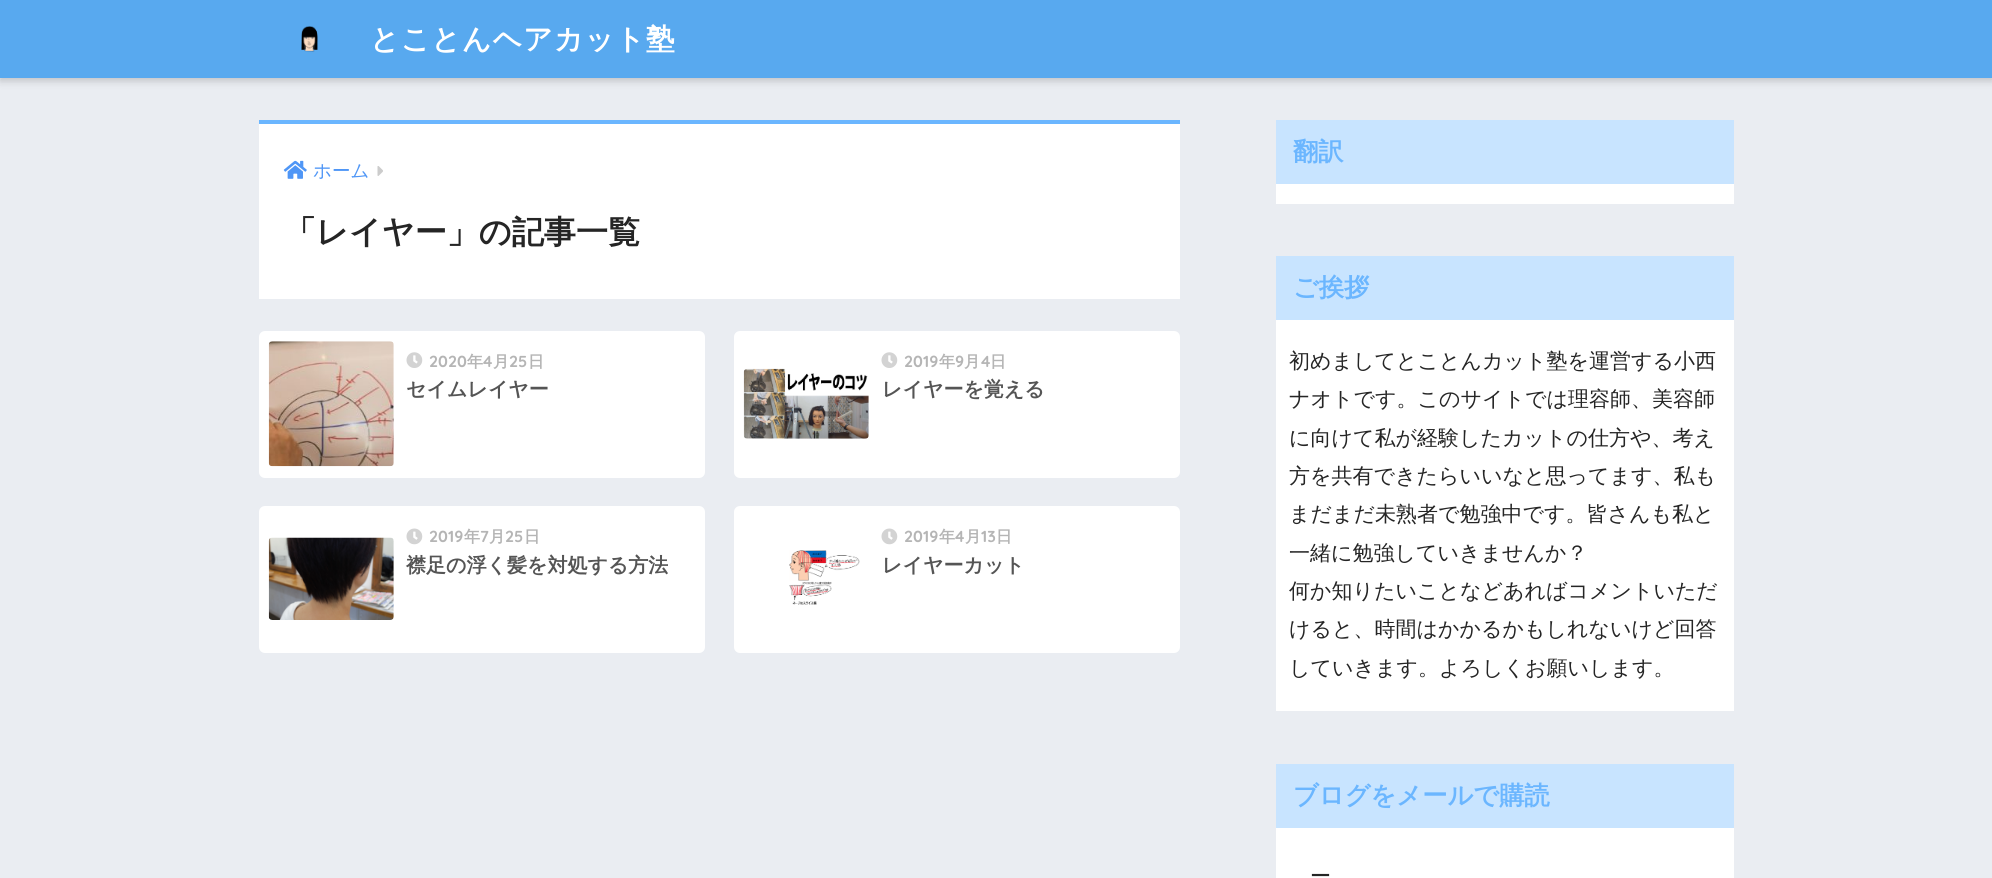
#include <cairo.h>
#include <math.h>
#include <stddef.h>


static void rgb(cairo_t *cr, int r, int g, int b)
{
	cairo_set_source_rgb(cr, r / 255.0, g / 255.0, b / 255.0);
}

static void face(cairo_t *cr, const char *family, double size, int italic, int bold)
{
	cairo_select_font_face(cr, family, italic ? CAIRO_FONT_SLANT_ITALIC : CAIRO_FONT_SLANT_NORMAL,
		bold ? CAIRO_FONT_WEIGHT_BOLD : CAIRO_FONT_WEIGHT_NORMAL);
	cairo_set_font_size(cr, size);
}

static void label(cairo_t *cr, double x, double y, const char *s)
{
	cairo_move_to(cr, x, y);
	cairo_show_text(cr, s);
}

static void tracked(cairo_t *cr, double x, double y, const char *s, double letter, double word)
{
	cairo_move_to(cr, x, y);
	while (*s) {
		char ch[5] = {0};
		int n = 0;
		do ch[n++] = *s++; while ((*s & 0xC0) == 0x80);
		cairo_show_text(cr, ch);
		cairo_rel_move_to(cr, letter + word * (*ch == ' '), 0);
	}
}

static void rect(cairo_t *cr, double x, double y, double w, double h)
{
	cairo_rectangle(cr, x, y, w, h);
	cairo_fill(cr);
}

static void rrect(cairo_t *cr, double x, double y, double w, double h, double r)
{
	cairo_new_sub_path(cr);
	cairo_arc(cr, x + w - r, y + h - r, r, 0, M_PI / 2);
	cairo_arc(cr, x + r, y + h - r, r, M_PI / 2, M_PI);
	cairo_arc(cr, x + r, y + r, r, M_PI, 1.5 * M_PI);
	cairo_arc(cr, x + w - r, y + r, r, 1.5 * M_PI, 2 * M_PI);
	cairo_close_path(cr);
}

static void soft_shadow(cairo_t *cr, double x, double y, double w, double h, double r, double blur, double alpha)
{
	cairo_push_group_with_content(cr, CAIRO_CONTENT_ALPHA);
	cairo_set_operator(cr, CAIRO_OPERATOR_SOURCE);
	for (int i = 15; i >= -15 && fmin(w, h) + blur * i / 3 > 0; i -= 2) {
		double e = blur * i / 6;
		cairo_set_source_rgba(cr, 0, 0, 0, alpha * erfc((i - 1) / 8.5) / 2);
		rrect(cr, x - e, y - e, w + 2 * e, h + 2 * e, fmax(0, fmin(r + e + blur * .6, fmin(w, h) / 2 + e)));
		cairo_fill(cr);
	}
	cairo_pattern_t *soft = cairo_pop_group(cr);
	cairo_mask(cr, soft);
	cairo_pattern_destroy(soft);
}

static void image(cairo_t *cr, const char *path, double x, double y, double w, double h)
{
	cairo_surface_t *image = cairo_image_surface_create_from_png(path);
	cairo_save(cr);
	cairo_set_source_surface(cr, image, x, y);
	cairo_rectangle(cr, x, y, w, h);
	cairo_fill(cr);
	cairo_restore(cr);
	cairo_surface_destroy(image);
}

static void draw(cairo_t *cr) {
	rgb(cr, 234, 237, 242);
	cairo_paint(cr);
	rgb(cr, 0, 0, 0);
	soft_shadow(cr, 0, 4, 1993, 77, 0, 4, 0.18);
	rgb(cr, 88, 169, 239);
	rect(cr, 0, 0, 1992, 78);
	image(cr, "image0.png", 301, 26, 17, 26);
	face(cr, "WenQuanYi Zen Hei", 28.75, 0, 1);
	rgb(cr, 255, 255, 255);
	tracked(cr, 370, 49, "とことんヘアカット塾", 1.25, 0);
	rect(cr, 259, 124, 921, 175);
	rgb(cr, 107, 182, 255);
	rect(cr, 259, 120, 921, 4);
	image(cr, "image1.png", 283, 160, 24, 19);
	face(cr, "WenQuanYi Zen Hei Medium", 18.5, 0, 0);
	rgb(cr, 79, 150, 246);
	label(cr, 313, 177, "ホーム");
	image(cr, "image2.png", 377, 166, 6, 10);
	face(cr, "WenQuanYi Zen Hei", 32.1, 0, 1);
	rgb(cr, 37, 37, 37);
	label(cr, 284, 243, "「レイヤー」の記事一覧");
	rgb(cr, 255, 255, 255);
	rrect(cr, 259, 331, 446, 147, 6);
	cairo_fill(cr);
	image(cr, "image3.png", 268, 341, 126, 126);
	image(cr, "image4.png", 406, 352, 17, 16);
	face(cr, "Quicksand", 16, 0, 1);
	rgb(cr, 181, 181, 181);
	label(cr, 429, 367, "2020");
	face(cr, "WenQuanYi Zen Hei", 16, 0, 1);
	label(cr, 467, 367, "年");
	face(cr, "Quicksand", 16, 0, 1);
	label(cr, 483, 367, "4");
	face(cr, "WenQuanYi Zen Hei", 16, 0, 1);
	label(cr, 493, 367, "月");
	face(cr, "Quicksand", 16, 0, 1);
	label(cr, 509, 367, "25");
	face(cr, "WenQuanYi Zen Hei", 16, 0, 1);
	label(cr, 528, 367, "日");
	face(cr, "WenQuanYi Zen Hei", 20, 0, 1);
	rgb(cr, 85, 85, 85);
	label(cr, 406, 396, "セイムレイヤー");
	rgb(cr, 255, 255, 255);
	rrect(cr, 734, 331, 446, 147, 6);
	cairo_fill(cr);
	image(cr, "image5.png", 743, 368, 126, 71);
	image(cr, "image4.png", 881, 352, 17, 16);
	face(cr, "Quicksand", 16, 0, 1);
	rgb(cr, 181, 181, 181);
	label(cr, 904, 367, "2019");
	face(cr, "WenQuanYi Zen Hei", 16, 0, 1);
	label(cr, 939, 367, "年");
	face(cr, "Quicksand", 16, 0, 1);
	label(cr, 955, 367, "9");
	face(cr, "WenQuanYi Zen Hei", 16, 0, 1);
	label(cr, 964, 367, "月");
	face(cr, "Quicksand", 16, 0, 1);
	label(cr, 981, 367, "4");
	face(cr, "WenQuanYi Zen Hei", 16, 0, 1);
	label(cr, 990, 367, "日");
	face(cr, "WenQuanYi Zen Hei", 20, 0, 1);
	rgb(cr, 85, 85, 85);
	label(cr, 882, 396, "レイヤーを覚える");
	rgb(cr, 255, 255, 255);
	rrect(cr, 259, 506, 446, 147, 6);
	cairo_fill(cr);
	image(cr, "image6.png", 268, 537, 126, 83);
	image(cr, "image7.png", 406, 528, 17, 17);
	face(cr, "Quicksand", 16, 0, 1);
	rgb(cr, 181, 181, 181);
	label(cr, 429, 542, "2019");
	face(cr, "WenQuanYi Zen Hei", 16, 0, 1);
	label(cr, 464, 542, "年");
	face(cr, "Quicksand", 16, 0, 1);
	label(cr, 480, 542, "7");
	face(cr, "WenQuanYi Zen Hei", 16, 0, 1);
	label(cr, 489, 542, "月");
	face(cr, "Quicksand", 16, 0, 1);
	label(cr, 505, 542, "25");
	face(cr, "WenQuanYi Zen Hei", 16, 0, 1);
	label(cr, 524, 542, "日");
	face(cr, "WenQuanYi Zen Hei", 20, 0, 1);
	rgb(cr, 85, 85, 85);
	label(cr, 406, 572, "襟足の浮く髪を対処する方法");
	rgb(cr, 255, 255, 255);
	rrect(cr, 734, 506, 446, 147, 6);
	cairo_fill(cr);
	image(cr, "image8.png", 789, 550, 71, 55);
	image(cr, "image7.png", 881, 528, 17, 17);
	face(cr, "Quicksand", 16, 0, 1);
	rgb(cr, 181, 181, 181);
	label(cr, 904, 542, "2019");
	face(cr, "WenQuanYi Zen Hei", 16, 0, 1);
	label(cr, 939, 542, "年");
	face(cr, "Quicksand", 16, 0, 1);
	label(cr, 955, 542, "4");
	face(cr, "WenQuanYi Zen Hei", 16, 0, 1);
	label(cr, 965, 542, "月");
	face(cr, "Quicksand", 16, 0, 1);
	label(cr, 981, 542, "13");
	face(cr, "WenQuanYi Zen Hei", 16, 0, 1);
	label(cr, 996, 542, "日");
	face(cr, "WenQuanYi Zen Hei", 20, 0, 1);
	rgb(cr, 85, 85, 85);
	label(cr, 882, 572, "レイヤーカット");
	rgb(cr, 255, 255, 255);
	rect(cr, 1276, 184, 458, 20);
	rgb(cr, 200, 228, 255);
	rect(cr, 1276, 120, 458, 64);
	face(cr, "WenQuanYi Zen Hei", 25.25, 0, 1);
	rgb(cr, 107, 182, 255);
	label(cr, 1293, 160, "翻訳");
	rgb(cr, 255, 255, 255);
	rect(cr, 1276, 320, 458, 391);
	rgb(cr, 200, 228, 255);
	rect(cr, 1276, 256, 458, 64);
	rgb(cr, 107, 182, 255);
	label(cr, 1293, 296, "ご挨拶");
	face(cr, "WenQuanYi Zen Hei Medium", 21, 0, 0);
	rgb(cr, 37, 37, 37);
	label(cr, 1289, 368, "初めましてとことんカット塾を運営する小西");
	label(cr, 1289, 406, "ナオトです。このサイトでは理容師、美容師");
	label(cr, 1289, 445, "に向けて私が経験したカットの仕方や、考え");
	label(cr, 1289, 483, "方を共有できたらいいなと思ってます、私も");
	label(cr, 1289, 521, "まだまだ未熟者で勉強中です。皆さんも私と");
	label(cr, 1289, 560, "一緒に勉強していきませんか？");
	label(cr, 1289, 598, "何か知りたいことなどあればコメントいただ");
	label(cr, 1289, 636, "けると、時間はかかるかもしれないけど回答");
	label(cr, 1289, 675, "していきます。よろしくお願いします。");
	rgb(cr, 255, 255, 255);
	rect(cr, 1276, 828, 458, 50);
	rgb(cr, 200, 228, 255);
	rect(cr, 1276, 764, 458, 64);
	face(cr, "WenQuanYi Zen Hei", 25.25, 0, 1);
	rgb(cr, 107, 182, 255);
	label(cr, 1293, 804, "ブログをメールで購読");
	face(cr, "WenQuanYi Zen Hei Medium", 21, 0, 0);
	rgb(cr, 37, 37, 37);
	label(cr, 1310, 883, "ー");
}

int main(void) {
	cairo_surface_t *surface = cairo_image_surface_create(CAIRO_FORMAT_RGB24, 1992, 878);
	cairo_t *cr = cairo_create(surface);
	cairo_font_options_t *options = cairo_font_options_create();
	cairo_font_options_set_hint_metrics(options, CAIRO_HINT_METRICS_OFF);
	cairo_font_options_set_hint_style(options, CAIRO_HINT_STYLE_NONE);
	cairo_set_font_options(cr, options);
	cairo_set_miter_limit(cr, 4);
	draw(cr);
	cairo_surface_write_to_png(surface, "render.png");
	cairo_font_options_destroy(options);
	cairo_destroy(cr);
	cairo_surface_destroy(surface);
	return 0;
}
